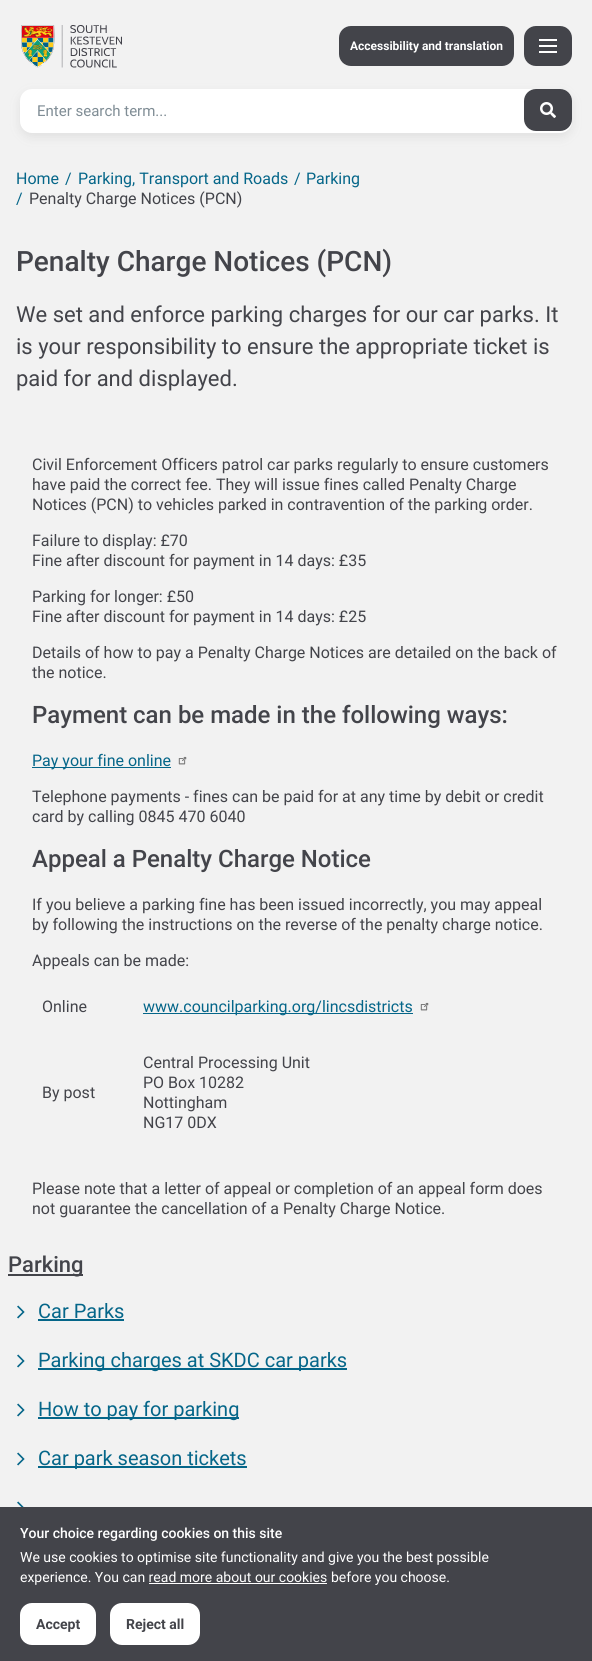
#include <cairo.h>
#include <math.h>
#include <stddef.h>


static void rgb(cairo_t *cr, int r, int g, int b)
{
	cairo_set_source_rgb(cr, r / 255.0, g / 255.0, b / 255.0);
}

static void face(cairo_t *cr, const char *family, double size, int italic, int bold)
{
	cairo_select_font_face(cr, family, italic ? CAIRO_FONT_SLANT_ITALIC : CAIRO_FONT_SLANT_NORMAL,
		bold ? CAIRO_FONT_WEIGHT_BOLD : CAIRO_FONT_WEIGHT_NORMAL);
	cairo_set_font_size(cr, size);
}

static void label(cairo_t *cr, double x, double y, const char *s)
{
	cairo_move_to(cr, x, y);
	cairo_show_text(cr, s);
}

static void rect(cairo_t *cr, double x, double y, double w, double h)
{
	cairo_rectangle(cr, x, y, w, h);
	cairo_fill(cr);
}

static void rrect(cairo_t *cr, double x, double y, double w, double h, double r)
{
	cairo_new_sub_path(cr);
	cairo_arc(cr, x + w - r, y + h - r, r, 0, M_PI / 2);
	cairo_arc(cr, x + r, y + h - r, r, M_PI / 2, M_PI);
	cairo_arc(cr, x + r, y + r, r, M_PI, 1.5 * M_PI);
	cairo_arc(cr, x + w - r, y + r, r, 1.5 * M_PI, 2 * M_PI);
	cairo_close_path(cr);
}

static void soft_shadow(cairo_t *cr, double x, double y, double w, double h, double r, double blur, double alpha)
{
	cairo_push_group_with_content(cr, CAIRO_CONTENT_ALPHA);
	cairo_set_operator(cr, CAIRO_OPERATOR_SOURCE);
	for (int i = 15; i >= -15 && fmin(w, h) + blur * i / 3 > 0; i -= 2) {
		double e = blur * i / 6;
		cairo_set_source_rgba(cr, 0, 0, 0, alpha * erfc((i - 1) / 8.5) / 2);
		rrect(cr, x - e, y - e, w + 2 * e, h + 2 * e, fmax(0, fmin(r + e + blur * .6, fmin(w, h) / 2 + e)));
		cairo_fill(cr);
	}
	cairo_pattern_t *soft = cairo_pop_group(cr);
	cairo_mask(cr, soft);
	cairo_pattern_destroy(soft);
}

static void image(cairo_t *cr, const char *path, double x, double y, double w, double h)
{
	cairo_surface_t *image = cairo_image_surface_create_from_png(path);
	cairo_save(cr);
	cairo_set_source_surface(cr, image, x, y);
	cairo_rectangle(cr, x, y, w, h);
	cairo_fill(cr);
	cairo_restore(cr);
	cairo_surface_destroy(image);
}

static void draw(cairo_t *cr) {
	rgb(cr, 242, 242, 242);
	cairo_paint(cr);
	image(cr, "image0.png", 21, 25, 101, 43);
	rgb(cr, 67, 68, 74);
	rrect(cr, 339, 26, 175, 40, 12);
	cairo_fill(cr);
	face(cr, "Roboto", 12, 0, 1);
	rgb(cr, 255, 255, 255);
	label(cr, 350, 50, "Accessibility and translation");
	rgb(cr, 67, 68, 74);
	rrect(cr, 524, 26, 48, 40, 12);
	cairo_fill(cr);
	rgb(cr, 255, 255, 255);
	rect(cr, 539, 39, 18, 2);
	rect(cr, 539, 45, 18, 2);
	rect(cr, 539, 51, 18, 2);
	rgb(cr, 224, 224, 224);
	soft_shadow(cr, 20, 93, 552, 44, 12, 5, 1);
	rgb(cr, 255, 255, 255);
	rrect(cr, 20, 89, 552, 44, 12);
	cairo_fill(cr);
	face(cr, "Roboto", 15, 0, 0);
	rgb(cr, 128, 141, 149);
	label(cr, 37, 116, "Enter search term...");
	rgb(cr, 67, 68, 74);
	rrect(cr, 524, 89, 48, 42, 12);
	cairo_fill(cr);
	image(cr, "image1.png", 540, 102, 16, 16);
	face(cr, "Roboto", 16, 0, 0);
	rgb(cr, 5, 102, 137);
	label(cr, 16, 184, "Home");
	label(cr, 65, 184, "/");
	label(cr, 78, 184, "Parking, Transport and Roads");
	label(cr, 294, 184, "/");
	label(cr, 306, 184, "Parking");
	label(cr, 16, 204, "/");
	rgb(cr, 67, 68, 74);
	label(cr, 29, 204, "Penalty Charge Notices (PCN)");
	face(cr, "Roboto Medium", 28, 0, 0);
	label(cr, 16, 271, "Penalty Charge Notices (PCN)");
	face(cr, "Roboto", 22, 0, 0);
	label(cr, 16, 322, "We set and enforce parking charges for our car parks. It");
	label(cr, 16, 354, "is your responsibility to ensure the appropriate ticket is");
	label(cr, 16, 386, "paid for and displayed.");
	face(cr, "Roboto", 16, 0, 0);
	label(cr, 32, 470, "Civil Enforcement Officers patrol car parks regularly to ensure customers");
	label(cr, 32, 490, "have paid the correct fee. They will issue fines called Penalty Charge");
	label(cr, 32, 510, "Notices (PCN) to vehicles parked in contravention of the parking order.");
	label(cr, 32, 546, "Failure to display: £70");
	label(cr, 32, 566, "Fine after discount for payment in 14 days: £35");
	label(cr, 32, 602, "Parking for longer: £50");
	label(cr, 32, 622, "Fine after discount for payment in 14 days: £25");
	label(cr, 32, 658, "Details of how to pay a Penalty Charge Notices are detailed on the back of");
	label(cr, 32, 678, "the notice.");
	face(cr, "Roboto Medium", 24, 0, 0);
	label(cr, 32, 723, "Payment can be made in the following ways:");
	rgb(cr, 5, 102, 137);
	rect(cr, 32, 767, 139, 1);
	face(cr, "Roboto", 16, 0, 0);
	label(cr, 32, 766, "Pay your fine online");
	image(cr, "image2.png", 178, 756, 9, 9);
	rgb(cr, 67, 68, 74);
	label(cr, 32, 802, "Telephone payments - fines can be paid for at any time by debit or credit");
	label(cr, 32, 822, "card by calling 0845 470 6040");
	face(cr, "Roboto Medium", 24, 0, 0);
	label(cr, 32, 867, "Appeal a Penalty Charge Notice");
	face(cr, "Roboto", 16, 0, 0);
	label(cr, 32, 910, "If you believe a parking fine has been issued incorrectly, you may appeal");
	label(cr, 32, 930, "by following the instructions on the reverse of the penalty charge notice.");
	label(cr, 32, 966, "Appeals can be made:");
	label(cr, 42, 1012, "Online");
	rgb(cr, 5, 102, 137);
	rect(cr, 143, 1013, 270, 1);
	label(cr, 143, 1012, "www.councilparking.org/lincsdistricts");
	image(cr, "image2.png", 420, 1002, 9, 9);
	rgb(cr, 67, 68, 74);
	label(cr, 42, 1098, "By post");
	label(cr, 143, 1068, "Central Processing Unit");
	label(cr, 143, 1088, "PO Box 10282");
	label(cr, 143, 1108, "Nottingham");
	label(cr, 143, 1128, "NG17 0DX");
	label(cr, 32, 1194, "Please note that a letter of appeal or completion of an appeal form does");
	label(cr, 32, 1214, "not guarantee the cancellation of a Penalty Charge Notice.");
	rect(cr, 8, 1274, 75, 2);
	face(cr, "Roboto Medium", 22, 0, 0);
	label(cr, 8, 1272, "Parking");
	image(cr, "image3.png", 17, 1305, 8, 14);
	face(cr, "Roboto", 20, 0, 0);
	rgb(cr, 5, 102, 137);
	label(cr, 38, 1318, "Car Parks");
	rect(cr, 38, 1319, 86, 2);
	image(cr, "image3.png", 17, 1354, 8, 14);
	rect(cr, 38, 1368, 309, 2);
	label(cr, 38, 1367, "Parking charges at SKDC car parks");
	image(cr, "image3.png", 17, 1403, 8, 14);
	rect(cr, 38, 1417, 201, 2);
	label(cr, 38, 1416, "How to pay for parking");
	image(cr, "image3.png", 17, 1452, 8, 14);
	rect(cr, 38, 1466, 209, 2);
	label(cr, 38, 1465, "Car park season tickets");
	image(cr, "image4.png", 17, 1501, 7, 6);
	rgb(cr, 67, 68, 74);
	rect(cr, 0, 1507, 592, 154);
	face(cr, "Roboto Medium", 14, 0, 0);
	rgb(cr, 255, 255, 255);
	label(cr, 20, 1538, "Your choice regarding cookies on this site");
	face(cr, "Roboto", 14, 0, 0);
	label(cr, 20, 1562, "We use cookies to optimise site functionality and give you the best possible");
	label(cr, 20, 1582, "experience. You can read more about our cookies");
	label(cr, 331, 1582, "before you choose.");
	rect(cr, 149, 1583, 178, 1);
	rrect(cr, 20, 1603, 76, 42, 12);
	cairo_fill(cr);
	face(cr, "Roboto", 14, 0, 1);
	rgb(cr, 67, 68, 74);
	label(cr, 36, 1629, "Accept");
	rgb(cr, 255, 255, 255);
	rrect(cr, 110, 1603, 90, 42, 12);
	cairo_fill(cr);
	rgb(cr, 67, 68, 74);
	label(cr, 126, 1629, "Reject all");
}

int main(void) {
	cairo_surface_t *surface = cairo_image_surface_create(CAIRO_FORMAT_RGB24, 592, 1661);
	cairo_t *cr = cairo_create(surface);
	cairo_font_options_t *options = cairo_font_options_create();
	cairo_font_options_set_hint_metrics(options, CAIRO_HINT_METRICS_OFF);
	cairo_font_options_set_hint_style(options, CAIRO_HINT_STYLE_NONE);
	cairo_set_font_options(cr, options);
	cairo_set_miter_limit(cr, 4);
	draw(cr);
	cairo_surface_write_to_png(surface, "render.png");
	cairo_font_options_destroy(options);
	cairo_destroy(cr);
	cairo_surface_destroy(surface);
	return 0;
}
